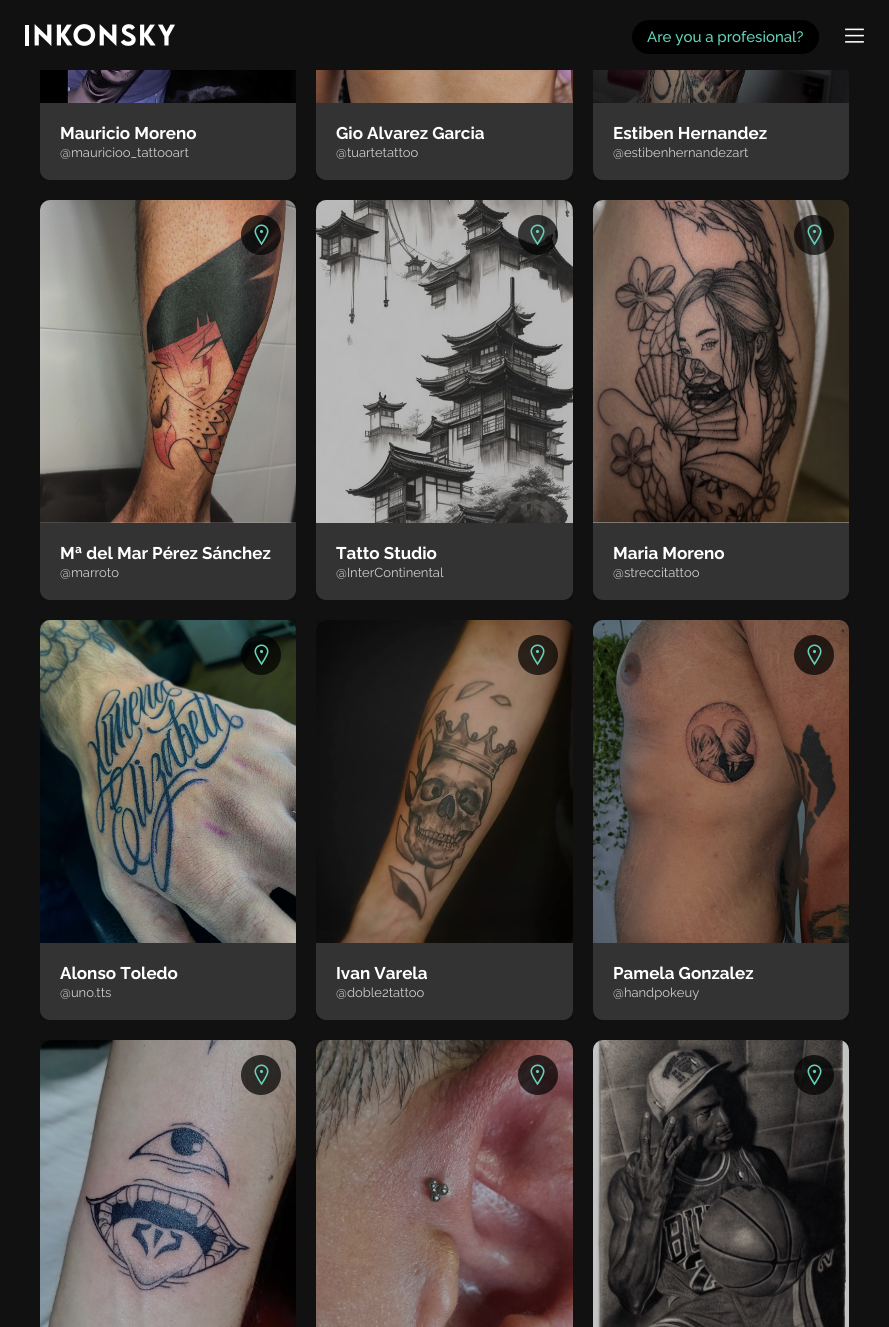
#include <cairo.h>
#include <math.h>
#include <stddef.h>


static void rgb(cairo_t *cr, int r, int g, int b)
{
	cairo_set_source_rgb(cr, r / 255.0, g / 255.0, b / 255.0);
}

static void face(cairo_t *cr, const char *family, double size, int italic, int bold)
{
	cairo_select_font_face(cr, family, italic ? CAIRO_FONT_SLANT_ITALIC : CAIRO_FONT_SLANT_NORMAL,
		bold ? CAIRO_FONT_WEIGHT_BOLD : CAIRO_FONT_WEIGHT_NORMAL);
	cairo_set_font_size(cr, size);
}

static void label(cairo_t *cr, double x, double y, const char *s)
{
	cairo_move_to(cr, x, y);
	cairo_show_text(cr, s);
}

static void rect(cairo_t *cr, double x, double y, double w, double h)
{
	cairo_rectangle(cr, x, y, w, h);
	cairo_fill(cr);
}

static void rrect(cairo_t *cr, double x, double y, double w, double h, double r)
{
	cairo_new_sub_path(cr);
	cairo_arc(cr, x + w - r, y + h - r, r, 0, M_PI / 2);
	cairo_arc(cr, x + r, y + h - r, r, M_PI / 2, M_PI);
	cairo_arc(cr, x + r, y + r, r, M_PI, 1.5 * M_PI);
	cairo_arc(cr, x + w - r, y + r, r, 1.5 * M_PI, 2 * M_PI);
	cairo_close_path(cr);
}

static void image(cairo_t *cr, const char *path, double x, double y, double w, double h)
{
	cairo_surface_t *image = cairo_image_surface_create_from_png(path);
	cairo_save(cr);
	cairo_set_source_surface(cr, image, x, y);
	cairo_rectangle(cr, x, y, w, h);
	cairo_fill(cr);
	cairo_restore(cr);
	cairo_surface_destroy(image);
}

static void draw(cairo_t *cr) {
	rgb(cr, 17, 17, 17);
	cairo_paint(cr);
	rgb(cr, 14, 14, 14);
	rect(cr, 593, 1040, 256, 10);
	rect(cr, 316, 1040, 257, 10);
	rect(cr, 40, 1040, 256, 10);
	rect(cr, 593, 620, 256, 400);
	rect(cr, 316, 620, 257, 400);
	rect(cr, 40, 620, 256, 400);
	rect(cr, 593, 200, 256, 400);
	rect(cr, 316, 200, 257, 400);
	rect(cr, 40, 200, 256, 400);
	rect(cr, 593, 170, 256, 10);
	rect(cr, 316, 170, 257, 10);
	rect(cr, 40, 170, 256, 10);
	image(cr, "image0.png", 25, 24, 150, 22);
	rgb(cr, 0, 0, 0);
	rrect(cr, 632, 20, 187, 34, 17);
	cairo_fill(cr);
	face(cr, "Raleway Medium", 15, 0, 0);
	rgb(cr, 101, 211, 187);
	label(cr, 647, 42, "Are you a profesional?");
	image(cr, "image1.png", 845, 28, 19, 15);
	image(cr, "image2.png", 40, 70, 256, 33);
	rgb(cr, 51, 51, 51);
	rect(cr, 40, 103, 256, 40);
	face(cr, "Raleway", 17, 0, 1);
	rgb(cr, 255, 255, 255);
	label(cr, 60, 139, "Mauricio Moreno");
	rgb(cr, 51, 51, 51);
	cairo_new_path(cr);
	cairo_move_to(cr, 40, 143);
	cairo_line_to(cr, 296, 143);
	cairo_line_to(cr, 296, 170);
	cairo_curve_to(cr, 296, 175.5, 291.5, 180, 286, 180);
	cairo_line_to(cr, 50, 180);
	cairo_curve_to(cr, 44.5, 180, 40, 175.5, 40, 170);
	cairo_close_path(cr);
	cairo_fill(cr);
	face(cr, "Raleway", 13, 0, 0);
	rgb(cr, 205, 205, 205);
	label(cr, 60, 157, "@mauricioo_tattooart");
	image(cr, "image3.png", 316, 70, 257, 33);
	rgb(cr, 51, 51, 51);
	rect(cr, 316, 103, 257, 40);
	face(cr, "Raleway", 17, 0, 1);
	rgb(cr, 255, 255, 255);
	label(cr, 336, 139, "Gio Alvarez Garcia");
	rgb(cr, 51, 51, 51);
	cairo_new_path(cr);
	cairo_move_to(cr, 316, 143);
	cairo_line_to(cr, 573, 143);
	cairo_line_to(cr, 573, 170);
	cairo_curve_to(cr, 573, 175.5, 568.5, 180, 563, 180);
	cairo_line_to(cr, 326, 180);
	cairo_curve_to(cr, 320.5, 180, 316, 175.5, 316, 170);
	cairo_close_path(cr);
	cairo_fill(cr);
	face(cr, "Raleway", 13, 0, 0);
	rgb(cr, 205, 205, 205);
	label(cr, 336, 157, "@tuartetattoo");
	image(cr, "image4.png", 593, 70, 256, 33);
	rgb(cr, 51, 51, 51);
	rect(cr, 593, 103, 256, 40);
	face(cr, "Raleway", 17, 0, 1);
	rgb(cr, 255, 255, 255);
	label(cr, 613, 139, "Estiben Hernandez");
	rgb(cr, 51, 51, 51);
	cairo_new_path(cr);
	cairo_move_to(cr, 593, 143);
	cairo_line_to(cr, 849, 143);
	cairo_line_to(cr, 849, 170);
	cairo_curve_to(cr, 849, 175.5, 844.5, 180, 839, 180);
	cairo_line_to(cr, 603, 180);
	cairo_curve_to(cr, 597.5, 180, 593, 175.5, 593, 170);
	cairo_close_path(cr);
	cairo_fill(cr);
	face(cr, "Raleway", 13, 0, 0);
	rgb(cr, 205, 205, 205);
	label(cr, 613, 157, "@estibenhernandezart");
	rgb(cr, 41, 41, 41);
	cairo_new_path(cr);
	cairo_move_to(cr, 50, 200);
	cairo_line_to(cr, 286, 200);
	cairo_curve_to(cr, 291.5, 200, 296, 204.5, 296, 210);
	cairo_line_to(cr, 296, 523);
	cairo_line_to(cr, 40, 523);
	cairo_line_to(cr, 40, 210);
	cairo_curve_to(cr, 40, 204.5, 44.5, 200, 50, 200);
	cairo_close_path(cr);
	cairo_fill(cr);
	image(cr, "image5.png", 40, 200, 256, 323);
	cairo_set_source_rgba(cr, 0, 0, 0, 0.7);
	cairo_arc(cr, 261, 235, 20, 0, 2 * M_PI);
	cairo_fill(cr);
	image(cr, "image6.png", 254, 224, 15, 22);
	rgb(cr, 51, 51, 51);
	rect(cr, 40, 523, 256, 40);
	face(cr, "Raleway", 17, 0, 1);
	rgb(cr, 255, 255, 255);
	label(cr, 60, 559, "Mª del Mar Pérez Sánchez");
	rgb(cr, 51, 51, 51);
	cairo_new_path(cr);
	cairo_move_to(cr, 40, 563);
	cairo_line_to(cr, 296, 563);
	cairo_line_to(cr, 296, 590);
	cairo_curve_to(cr, 296, 595.5, 291.5, 600, 286, 600);
	cairo_line_to(cr, 50, 600);
	cairo_curve_to(cr, 44.5, 600, 40, 595.5, 40, 590);
	cairo_close_path(cr);
	cairo_fill(cr);
	face(cr, "Raleway", 13, 0, 0);
	rgb(cr, 205, 205, 205);
	label(cr, 60, 577, "@marroto");
	rgb(cr, 41, 41, 41);
	cairo_new_path(cr);
	cairo_move_to(cr, 326, 200);
	cairo_line_to(cr, 563, 200);
	cairo_curve_to(cr, 568.5, 200, 573, 204.5, 573, 210);
	cairo_line_to(cr, 573, 523);
	cairo_line_to(cr, 316, 523);
	cairo_line_to(cr, 316, 210);
	cairo_curve_to(cr, 316, 204.5, 320.5, 200, 326, 200);
	cairo_close_path(cr);
	cairo_fill(cr);
	image(cr, "image7.png", 316, 200, 257, 323);
	cairo_set_source_rgba(cr, 0, 0, 0, 0.7);
	cairo_arc(cr, 538, 235, 20, 0, 2 * M_PI);
	cairo_fill(cr);
	image(cr, "image8.png", 530, 224, 15, 22);
	rgb(cr, 51, 51, 51);
	rect(cr, 316, 523, 257, 40);
	face(cr, "Raleway", 17, 0, 1);
	rgb(cr, 255, 255, 255);
	label(cr, 336, 559, "Tatto Studio");
	rgb(cr, 51, 51, 51);
	cairo_new_path(cr);
	cairo_move_to(cr, 316, 563);
	cairo_line_to(cr, 573, 563);
	cairo_line_to(cr, 573, 590);
	cairo_curve_to(cr, 573, 595.5, 568.5, 600, 563, 600);
	cairo_line_to(cr, 326, 600);
	cairo_curve_to(cr, 320.5, 600, 316, 595.5, 316, 590);
	cairo_close_path(cr);
	cairo_fill(cr);
	face(cr, "Raleway", 13, 0, 0);
	rgb(cr, 205, 205, 205);
	label(cr, 336, 577, "@InterContinental");
	rgb(cr, 41, 41, 41);
	cairo_new_path(cr);
	cairo_move_to(cr, 603, 200);
	cairo_line_to(cr, 839, 200);
	cairo_curve_to(cr, 844.5, 200, 849, 204.5, 849, 210);
	cairo_line_to(cr, 849, 523);
	cairo_line_to(cr, 593, 523);
	cairo_line_to(cr, 593, 210);
	cairo_curve_to(cr, 593, 204.5, 597.5, 200, 603, 200);
	cairo_close_path(cr);
	cairo_fill(cr);
	image(cr, "image9.png", 593, 200, 256, 323);
	cairo_set_source_rgba(cr, 0, 0, 0, 0.7);
	cairo_arc(cr, 814, 235, 20, 0, 2 * M_PI);
	cairo_fill(cr);
	image(cr, "image10.png", 807, 224, 15, 22);
	rgb(cr, 51, 51, 51);
	rect(cr, 593, 523, 256, 40);
	face(cr, "Raleway", 17, 0, 1);
	rgb(cr, 255, 255, 255);
	label(cr, 613, 559, "Maria Moreno");
	rgb(cr, 51, 51, 51);
	cairo_new_path(cr);
	cairo_move_to(cr, 593, 563);
	cairo_line_to(cr, 849, 563);
	cairo_line_to(cr, 849, 590);
	cairo_curve_to(cr, 849, 595.5, 844.5, 600, 839, 600);
	cairo_line_to(cr, 603, 600);
	cairo_curve_to(cr, 597.5, 600, 593, 595.5, 593, 590);
	cairo_close_path(cr);
	cairo_fill(cr);
	face(cr, "Raleway", 13, 0, 0);
	rgb(cr, 205, 205, 205);
	label(cr, 613, 577, "@streccitattoo");
	rgb(cr, 41, 41, 41);
	cairo_new_path(cr);
	cairo_move_to(cr, 50, 620);
	cairo_line_to(cr, 286, 620);
	cairo_curve_to(cr, 291.5, 620, 296, 624.5, 296, 630);
	cairo_line_to(cr, 296, 943);
	cairo_line_to(cr, 40, 943);
	cairo_line_to(cr, 40, 630);
	cairo_curve_to(cr, 40, 624.5, 44.5, 620, 50, 620);
	cairo_close_path(cr);
	cairo_fill(cr);
	image(cr, "image11.png", 40, 620, 256, 323);
	cairo_set_source_rgba(cr, 0, 0, 0, 0.7);
	cairo_arc(cr, 261, 655, 20, 0, 2 * M_PI);
	cairo_fill(cr);
	image(cr, "image12.png", 254, 644, 15, 22);
	rgb(cr, 51, 51, 51);
	rect(cr, 40, 943, 256, 40);
	face(cr, "Raleway", 17, 0, 1);
	rgb(cr, 255, 255, 255);
	label(cr, 60, 979, "Alonso Toledo");
	rgb(cr, 51, 51, 51);
	cairo_new_path(cr);
	cairo_move_to(cr, 40, 983);
	cairo_line_to(cr, 296, 983);
	cairo_line_to(cr, 296, 1010);
	cairo_curve_to(cr, 296, 1015.5, 291.5, 1020, 286, 1020);
	cairo_line_to(cr, 50, 1020);
	cairo_curve_to(cr, 44.5, 1020, 40, 1015.5, 40, 1010);
	cairo_close_path(cr);
	cairo_fill(cr);
	face(cr, "Raleway", 13, 0, 0);
	rgb(cr, 205, 205, 205);
	label(cr, 60, 997, "@uno.tts");
	rgb(cr, 41, 41, 41);
	cairo_new_path(cr);
	cairo_move_to(cr, 326, 620);
	cairo_line_to(cr, 563, 620);
	cairo_curve_to(cr, 568.5, 620, 573, 624.5, 573, 630);
	cairo_line_to(cr, 573, 943);
	cairo_line_to(cr, 316, 943);
	cairo_line_to(cr, 316, 630);
	cairo_curve_to(cr, 316, 624.5, 320.5, 620, 326, 620);
	cairo_close_path(cr);
	cairo_fill(cr);
	image(cr, "image13.png", 316, 620, 257, 323);
	cairo_set_source_rgba(cr, 0, 0, 0, 0.7);
	cairo_arc(cr, 538, 655, 20, 0, 2 * M_PI);
	cairo_fill(cr);
	image(cr, "image14.png", 530, 644, 15, 22);
	rgb(cr, 51, 51, 51);
	rect(cr, 316, 943, 257, 40);
	face(cr, "Raleway", 17, 0, 1);
	rgb(cr, 255, 255, 255);
	label(cr, 336, 979, "Ivan Varela");
	rgb(cr, 51, 51, 51);
	cairo_new_path(cr);
	cairo_move_to(cr, 316, 983);
	cairo_line_to(cr, 573, 983);
	cairo_line_to(cr, 573, 1010);
	cairo_curve_to(cr, 573, 1015.5, 568.5, 1020, 563, 1020);
	cairo_line_to(cr, 326, 1020);
	cairo_curve_to(cr, 320.5, 1020, 316, 1015.5, 316, 1010);
	cairo_close_path(cr);
	cairo_fill(cr);
	face(cr, "Raleway", 13, 0, 0);
	rgb(cr, 205, 205, 205);
	label(cr, 336, 997, "@doble2tattoo");
	rgb(cr, 41, 41, 41);
	cairo_new_path(cr);
	cairo_move_to(cr, 603, 620);
	cairo_line_to(cr, 839, 620);
	cairo_curve_to(cr, 844.5, 620, 849, 624.5, 849, 630);
	cairo_line_to(cr, 849, 943);
	cairo_line_to(cr, 593, 943);
	cairo_line_to(cr, 593, 630);
	cairo_curve_to(cr, 593, 624.5, 597.5, 620, 603, 620);
	cairo_close_path(cr);
	cairo_fill(cr);
	image(cr, "image15.png", 593, 620, 256, 323);
	cairo_set_source_rgba(cr, 0, 0, 0, 0.7);
	cairo_arc(cr, 814, 655, 20, 0, 2 * M_PI);
	cairo_fill(cr);
	image(cr, "image16.png", 807, 644, 15, 22);
	rgb(cr, 51, 51, 51);
	rect(cr, 593, 943, 256, 40);
	face(cr, "Raleway", 17, 0, 1);
	rgb(cr, 255, 255, 255);
	label(cr, 613, 979, "Pamela Gonzalez");
	rgb(cr, 51, 51, 51);
	cairo_new_path(cr);
	cairo_move_to(cr, 593, 983);
	cairo_line_to(cr, 849, 983);
	cairo_line_to(cr, 849, 1010);
	cairo_curve_to(cr, 849, 1015.5, 844.5, 1020, 839, 1020);
	cairo_line_to(cr, 603, 1020);
	cairo_curve_to(cr, 597.5, 1020, 593, 1015.5, 593, 1010);
	cairo_close_path(cr);
	cairo_fill(cr);
	face(cr, "Raleway", 13, 0, 0);
	rgb(cr, 205, 205, 205);
	label(cr, 613, 997, "@handpokeuy");
	rgb(cr, 41, 41, 41);
	cairo_new_path(cr);
	cairo_move_to(cr, 50, 1040);
	cairo_line_to(cr, 286, 1040);
	cairo_curve_to(cr, 291.5, 1040, 296, 1044.5, 296, 1050);
	cairo_line_to(cr, 296, 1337);
	cairo_line_to(cr, 40, 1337);
	cairo_line_to(cr, 40, 1050);
	cairo_curve_to(cr, 40, 1044.5, 44.5, 1040, 50, 1040);
	cairo_close_path(cr);
	cairo_fill(cr);
	image(cr, "image17.png", 40, 1040, 256, 287);
	cairo_set_source_rgba(cr, 0, 0, 0, 0.7);
	cairo_arc(cr, 261, 1075, 20, 0, 2 * M_PI);
	cairo_fill(cr);
	image(cr, "image18.png", 254, 1064, 15, 22);
	rgb(cr, 41, 41, 41);
	cairo_new_path(cr);
	cairo_move_to(cr, 326, 1040);
	cairo_line_to(cr, 563, 1040);
	cairo_curve_to(cr, 568.5, 1040, 573, 1044.5, 573, 1050);
	cairo_line_to(cr, 573, 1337);
	cairo_line_to(cr, 316, 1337);
	cairo_line_to(cr, 316, 1050);
	cairo_curve_to(cr, 316, 1044.5, 320.5, 1040, 326, 1040);
	cairo_close_path(cr);
	cairo_fill(cr);
	image(cr, "image19.png", 316, 1040, 257, 287);
	cairo_set_source_rgba(cr, 0, 0, 0, 0.7);
	cairo_arc(cr, 538, 1075, 20, 0, 2 * M_PI);
	cairo_fill(cr);
	image(cr, "image20.png", 530, 1064, 15, 22);
	rgb(cr, 41, 41, 41);
	cairo_new_path(cr);
	cairo_move_to(cr, 603, 1040);
	cairo_line_to(cr, 839, 1040);
	cairo_curve_to(cr, 844.5, 1040, 849, 1044.5, 849, 1050);
	cairo_line_to(cr, 849, 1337);
	cairo_line_to(cr, 593, 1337);
	cairo_line_to(cr, 593, 1050);
	cairo_curve_to(cr, 593, 1044.5, 597.5, 1040, 603, 1040);
	cairo_close_path(cr);
	cairo_fill(cr);
	image(cr, "image21.png", 593, 1040, 256, 287);
	cairo_set_source_rgba(cr, 0, 0, 0, 0.7);
	cairo_arc(cr, 814, 1075, 20, 0, 2 * M_PI);
	cairo_fill(cr);
	image(cr, "image22.png", 807, 1064, 15, 22);
}

int main(void) {
	cairo_surface_t *surface = cairo_image_surface_create(CAIRO_FORMAT_RGB24, 889, 1327);
	cairo_t *cr = cairo_create(surface);
	cairo_font_options_t *options = cairo_font_options_create();
	cairo_font_options_set_hint_metrics(options, CAIRO_HINT_METRICS_OFF);
	cairo_font_options_set_hint_style(options, CAIRO_HINT_STYLE_NONE);
	cairo_set_font_options(cr, options);
	cairo_set_miter_limit(cr, 4);
	draw(cr);
	cairo_surface_write_to_png(surface, "render.png");
	cairo_font_options_destroy(options);
	cairo_destroy(cr);
	cairo_surface_destroy(surface);
	return 0;
}
